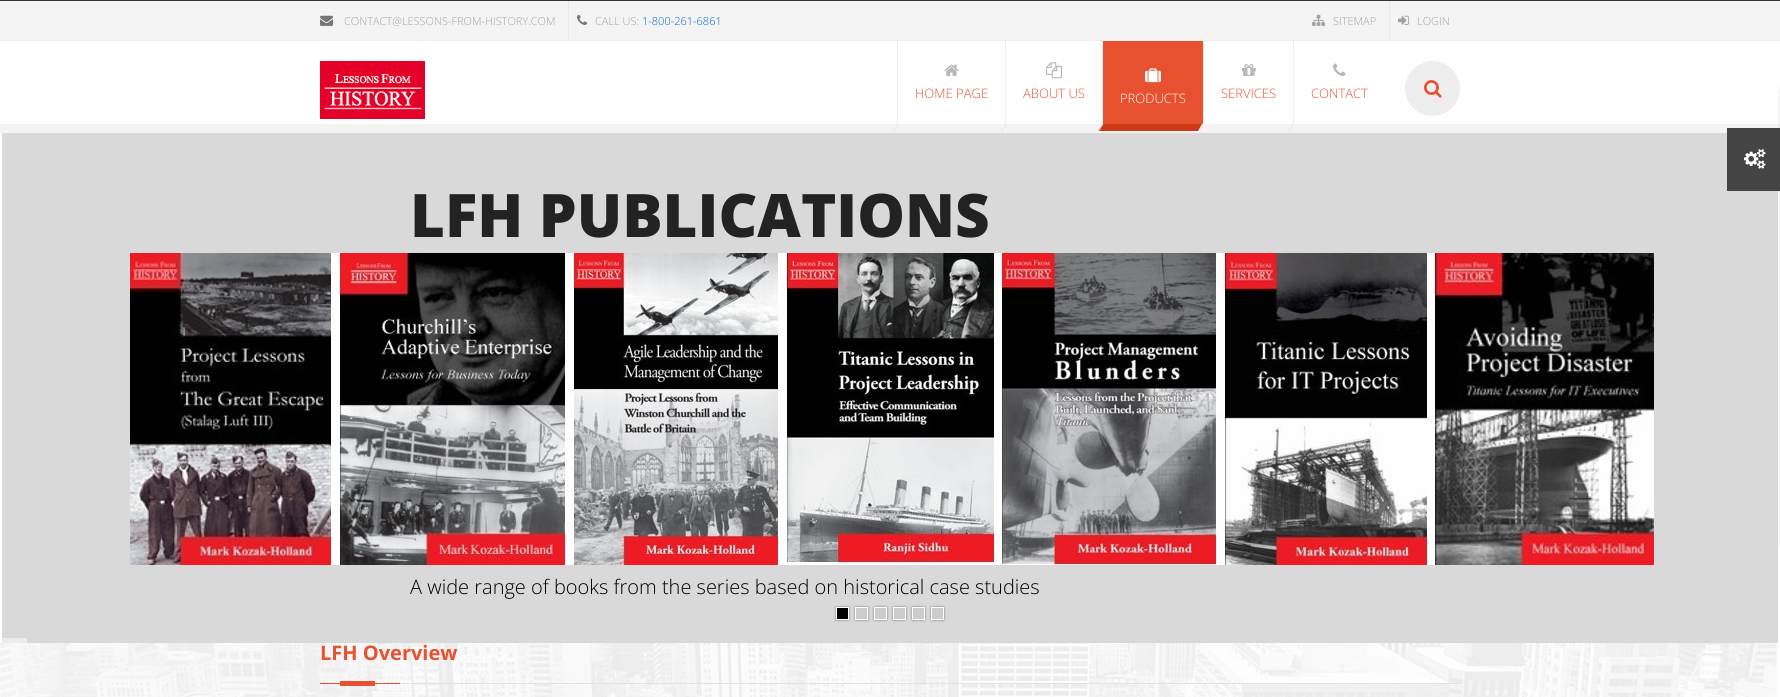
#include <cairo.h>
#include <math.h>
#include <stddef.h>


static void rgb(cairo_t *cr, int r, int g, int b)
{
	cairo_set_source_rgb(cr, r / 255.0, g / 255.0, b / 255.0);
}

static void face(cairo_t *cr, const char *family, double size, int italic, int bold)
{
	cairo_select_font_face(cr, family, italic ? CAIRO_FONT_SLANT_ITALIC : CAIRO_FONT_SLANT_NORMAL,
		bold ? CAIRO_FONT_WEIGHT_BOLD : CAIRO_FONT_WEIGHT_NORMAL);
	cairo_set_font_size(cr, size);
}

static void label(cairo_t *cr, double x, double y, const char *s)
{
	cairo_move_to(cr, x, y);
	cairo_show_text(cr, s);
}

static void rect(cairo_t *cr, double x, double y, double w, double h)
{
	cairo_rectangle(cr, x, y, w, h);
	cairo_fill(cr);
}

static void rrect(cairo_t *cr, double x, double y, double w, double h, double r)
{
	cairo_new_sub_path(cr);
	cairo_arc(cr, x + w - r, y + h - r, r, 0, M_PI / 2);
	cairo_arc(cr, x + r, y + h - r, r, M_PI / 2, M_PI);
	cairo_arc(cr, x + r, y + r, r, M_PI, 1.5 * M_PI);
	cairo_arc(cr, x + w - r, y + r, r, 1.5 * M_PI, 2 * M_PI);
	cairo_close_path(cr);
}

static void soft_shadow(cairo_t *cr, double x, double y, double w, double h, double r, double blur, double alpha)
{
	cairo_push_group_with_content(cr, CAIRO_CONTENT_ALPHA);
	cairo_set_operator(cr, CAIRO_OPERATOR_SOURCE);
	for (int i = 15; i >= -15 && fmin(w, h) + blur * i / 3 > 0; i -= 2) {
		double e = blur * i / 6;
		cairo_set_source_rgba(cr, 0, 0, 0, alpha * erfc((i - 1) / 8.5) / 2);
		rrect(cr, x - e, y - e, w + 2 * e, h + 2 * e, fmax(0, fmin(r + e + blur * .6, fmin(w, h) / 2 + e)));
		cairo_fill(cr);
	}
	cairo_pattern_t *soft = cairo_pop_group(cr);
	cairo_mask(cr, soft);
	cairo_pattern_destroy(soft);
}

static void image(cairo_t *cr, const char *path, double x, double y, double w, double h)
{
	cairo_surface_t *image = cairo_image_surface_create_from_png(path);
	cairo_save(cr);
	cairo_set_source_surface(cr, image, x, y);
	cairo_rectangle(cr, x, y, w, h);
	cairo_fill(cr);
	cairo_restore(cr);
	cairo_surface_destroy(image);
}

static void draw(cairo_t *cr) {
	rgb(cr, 255, 255, 255);
	cairo_paint(cr);
	rgb(cr, 51, 51, 51);
	rect(cr, 0, 0, 1780, 1);
	rgb(cr, 244, 244, 244);
	rect(cr, 0, 1, 1780, 39);
	rgb(cr, 238, 238, 238);
	rect(cr, 0, 40, 1780, 1);
	image(cr, "image0.png", 320, 15, 13, 11);
	face(cr, "Open Sans Light", 11, 0, 0);
	rgb(cr, 162, 162, 162);
	label(cr, 344, 25, "CONTACT@LESSONS-FROM-HISTORY.COM");
	rgb(cr, 233, 233, 233);
	rect(cr, 568, 1, 1, 39);
	image(cr, "image1.png", 577, 14, 11, 11);
	rgb(cr, 162, 162, 162);
	label(cr, 595, 25, "CALL US:");
	rgb(cr, 0, 102, 204);
	label(cr, 642, 25, "1-800-261-6861");
	image(cr, "image2.png", 1312, 14, 13, 12);
	rgb(cr, 162, 162, 162);
	label(cr, 1333, 25, "SITEMAP");
	rgb(cr, 233, 233, 233);
	rect(cr, 1389, 1, 1, 39);
	image(cr, "image3.png", 1398, 15, 12, 10);
	rgb(cr, 162, 162, 162);
	label(cr, 1417, 25, "LOGIN");
	rgb(cr, 244, 244, 244);
	rect(cr, 0, 124, 1780, 9);
	image(cr, "image4.png", 320, 61, 105, 58);
	rgb(cr, 238, 238, 238);
	rect(cr, 897, 41, 1, 83);
	image(cr, "image5.png", 944, 64, 15, 12);
	face(cr, "Open Sans Light", 13, 0, 0);
	rgb(cr, 231, 81, 47);
	label(cr, 915, 98, "HOME PAGE");
	rgb(cr, 228, 228, 228);
	cairo_new_path(cr);
	cairo_move_to(cr, 897.5, 124);
	cairo_line_to(cr, 898.5, 124);
	cairo_line_to(cr, 894, 131);
	cairo_line_to(cr, 893, 131);
	cairo_close_path(cr);
	cairo_fill(cr);
	rgb(cr, 238, 238, 238);
	rect(cr, 1005, 41, 1, 83);
	image(cr, "image6.png", 1046, 62, 16, 17);
	rgb(cr, 231, 81, 47);
	label(cr, 1023, 98, "ABOUT US");
	rgb(cr, 228, 228, 228);
	cairo_new_path(cr);
	cairo_move_to(cr, 1006, 124);
	cairo_line_to(cr, 1007, 124);
	cairo_line_to(cr, 1002, 131);
	cairo_line_to(cr, 1001, 131);
	cairo_close_path(cr);
	cairo_fill(cr);
	rgb(cr, 238, 238, 238);
	rect(cr, 1102, 41, 1, 83);
	rgb(cr, 231, 81, 47);
	rect(cr, 1103, 41, 100, 83);
	image(cr, "image7.png", 1145, 68, 16, 15);
	rgb(cr, 255, 255, 255);
	label(cr, 1120, 103, "PRODUCTS");
	rgb(cr, 204, 57, 23);
	cairo_new_path(cr);
	cairo_move_to(cr, 1103, 124);
	cairo_line_to(cr, 1202, 124);
	cairo_line_to(cr, 1198, 131);
	cairo_line_to(cr, 1098, 131);
	cairo_close_path(cr);
	cairo_fill(cr);
	rgb(cr, 228, 228, 228);
	cairo_new_path(cr);
	cairo_move_to(cr, 1102.5, 124);
	cairo_line_to(cr, 1103.5, 124);
	cairo_line_to(cr, 1099, 131);
	cairo_line_to(cr, 1098, 131);
	cairo_close_path(cr);
	cairo_fill(cr);
	rgb(cr, 238, 238, 238);
	rect(cr, 1203, 41, 1, 83);
	image(cr, "image8.png", 1242, 64, 14, 12);
	rgb(cr, 231, 81, 47);
	label(cr, 1221, 98, "SERVICES");
	rgb(cr, 228, 228, 228);
	cairo_new_path(cr);
	cairo_move_to(cr, 1203.5, 124);
	cairo_line_to(cr, 1204.5, 124);
	cairo_line_to(cr, 1199.5, 131);
	cairo_line_to(cr, 1198.5, 131);
	cairo_close_path(cr);
	cairo_fill(cr);
	rgb(cr, 238, 238, 238);
	rect(cr, 1293, 41, 1, 83);
	image(cr, "image9.png", 1333, 63, 13, 13);
	rgb(cr, 231, 81, 47);
	label(cr, 1311, 98, "CONTACT");
	rgb(cr, 228, 228, 228);
	cairo_new_path(cr);
	cairo_move_to(cr, 1293.5, 124);
	cairo_line_to(cr, 1294.5, 124);
	cairo_line_to(cr, 1289.5, 131);
	cairo_line_to(cr, 1288.5, 131);
	cairo_close_path(cr);
	cairo_fill(cr);
	rgb(cr, 238, 238, 238);
	cairo_arc(cr, 1432.5, 88.5, 27.5, 0, 2 * M_PI);
	cairo_fill(cr);
	image(cr, "image10.png", 1424, 80, 18, 18);
	rgb(cr, 217, 217, 217);
	rect(cr, 2, 133, 1776, 510);
	rgb(cr, 0, 0, 0);
	soft_shadow(cr, 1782, 90, 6, 456, 0, 2.5, 0.3);
	rgb(cr, 68, 68, 68);
	rect(cr, 1727, 128, 53, 63);
	image(cr, "image11.png", 1744, 149, 22, 20);
	face(cr, "Open Sans ExtraBold", 60, 0, 0);
	rgb(cr, 34, 34, 34);
	label(cr, 410, 237, "LFH PUBLICATIONS");
	image(cr, "image12.png", 130, 253, 1524, 312);
	face(cr, "Open Sans Light", 20, 0, 0);
	rgb(cr, 0, 0, 0);
	label(cr, 410, 594, "A wide range of books from the series based on historical case studies");
	rgb(cr, 236, 236, 236);
	rect(cr, 2, 638, 25, 5);
	image(cr, "image13.png", 834, 605, 17, 17);
	image(cr, "image14.png", 853, 605, 17, 17);
	image(cr, "image14.png", 872, 605, 17, 17);
	image(cr, "image14.png", 891, 605, 17, 17);
	image(cr, "image14.png", 910, 605, 17, 17);
	image(cr, "image14.png", 929, 605, 17, 17);
	image(cr, "image15.png", 0, 643, 1777, 54);
	rgb(cr, 226, 226, 226);
	rect(cr, 400, 683, 1060, 1);
	face(cr, "Open Sans", 20, 0, 1);
	rgb(cr, 231, 81, 47);
	label(cr, 320, 660, "LFH Overview");
	rect(cr, 340, 681, 35, 5);
	rect(cr, 320, 683, 80, 1);
}

int main(void) {
	cairo_surface_t *surface = cairo_image_surface_create(CAIRO_FORMAT_RGB24, 1780, 697);
	cairo_t *cr = cairo_create(surface);
	cairo_font_options_t *options = cairo_font_options_create();
	cairo_font_options_set_hint_metrics(options, CAIRO_HINT_METRICS_OFF);
	cairo_font_options_set_hint_style(options, CAIRO_HINT_STYLE_NONE);
	cairo_set_font_options(cr, options);
	cairo_set_miter_limit(cr, 4);
	draw(cr);
	cairo_surface_write_to_png(surface, "render.png");
	cairo_font_options_destroy(options);
	cairo_destroy(cr);
	cairo_surface_destroy(surface);
	return 0;
}
